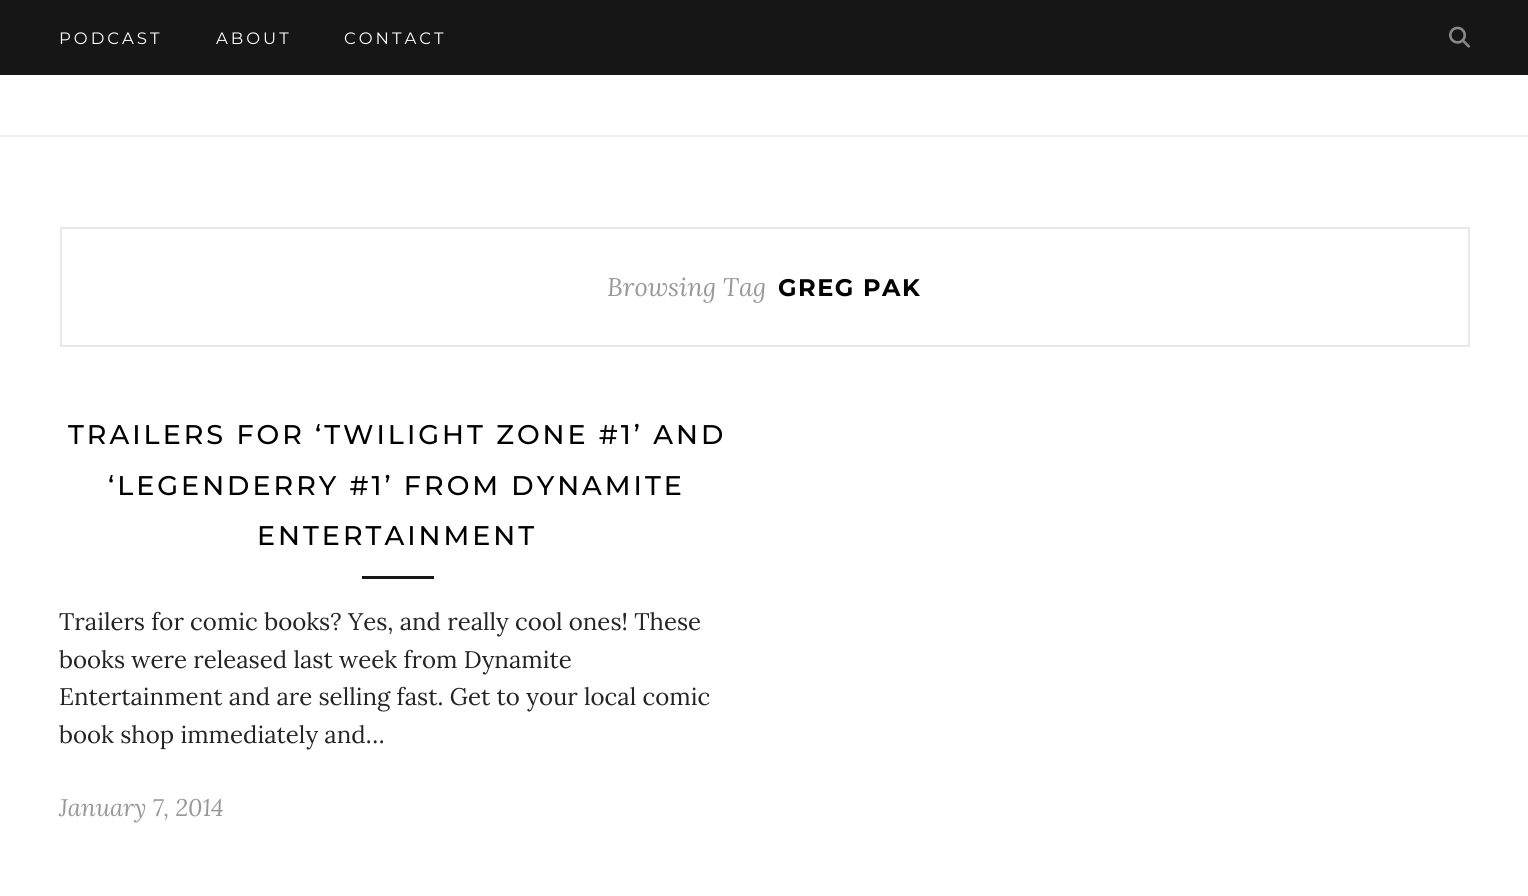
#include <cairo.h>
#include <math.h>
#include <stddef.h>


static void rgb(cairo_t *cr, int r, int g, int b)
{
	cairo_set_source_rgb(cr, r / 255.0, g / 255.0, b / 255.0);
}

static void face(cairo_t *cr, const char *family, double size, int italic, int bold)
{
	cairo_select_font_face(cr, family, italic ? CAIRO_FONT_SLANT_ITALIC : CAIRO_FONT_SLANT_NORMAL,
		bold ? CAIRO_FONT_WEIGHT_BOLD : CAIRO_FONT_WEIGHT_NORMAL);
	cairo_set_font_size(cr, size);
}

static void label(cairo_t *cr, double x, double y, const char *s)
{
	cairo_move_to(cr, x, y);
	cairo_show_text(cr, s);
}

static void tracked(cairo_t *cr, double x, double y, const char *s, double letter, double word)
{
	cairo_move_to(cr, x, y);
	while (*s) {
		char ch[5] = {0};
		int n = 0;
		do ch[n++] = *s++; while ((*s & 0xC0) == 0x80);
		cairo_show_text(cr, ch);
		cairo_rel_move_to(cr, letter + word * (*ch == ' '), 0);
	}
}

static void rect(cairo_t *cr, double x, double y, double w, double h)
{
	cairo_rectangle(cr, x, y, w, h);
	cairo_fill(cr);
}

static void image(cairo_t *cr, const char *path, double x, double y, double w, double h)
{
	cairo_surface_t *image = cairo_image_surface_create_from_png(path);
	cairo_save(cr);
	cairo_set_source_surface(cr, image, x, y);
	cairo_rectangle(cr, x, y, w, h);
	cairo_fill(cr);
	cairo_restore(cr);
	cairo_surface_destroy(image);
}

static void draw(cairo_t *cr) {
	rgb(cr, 255, 255, 255);
	cairo_paint(cr);
	rgb(cr, 22, 22, 22);
	rect(cr, 0, 0, 1528, 75);
	face(cr, "Montserrat", 16.5, 0, 0);
	rgb(cr, 255, 255, 255);
	tracked(cr, 59, 44, "PODCAST", 3, 0);
	tracked(cr, 216, 44, "ABOUT", 3, 0);
	tracked(cr, 344, 44, "CONTACT", 3, 0);
	image(cr, "image0.png", 1449, 26, 21, 22);
	rgb(cr, 238, 238, 238);
	rect(cr, 0, 135, 1528, 2);
	cairo_rectangle(cr, 61, 228, 1408, 118);
	rgb(cr, 232, 232, 232);
	cairo_stroke(cr);
	face(cr, "Lora", 25.5, 1, 0);
	rgb(cr, 153, 153, 153);
	label(cr, 607, 296, "Browsing Tag");
	face(cr, "Montserrat", 24, 0, 1);
	rgb(cr, 0, 0, 0);
	tracked(cr, 778, 296, "GREG PAK", 1.5, 0);
	face(cr, "Montserrat Medium", 27, 0, 0);
	tracked(cr, 68, 444, "TRAILERS FOR ‘TWILIGHT ZONE #1’ AND", 3, 0);
	tracked(cr, 108, 495, "‘LEGENDERRY #1’ FROM DYNAMITE", 3, 0);
	tracked(cr, 257, 545, "ENTERTAINMENT", 3, 0);
	rgb(cr, 22, 22, 22);
	rect(cr, 362, 576, 72, 3);
	face(cr, "Lora", 24, 0, 0);
	rgb(cr, 36, 36, 36);
	label(cr, 59, 630, "Trailers for comic books? Yes, and really cool ones! These");
	label(cr, 59, 668, "books were released last week from Dynamite");
	label(cr, 59, 705, "Entertainment and are selling fast. Get to your local comic");
	label(cr, 59, 743, "book shop immediately and…");
	face(cr, "Lora", 24, 1, 0);
	rgb(cr, 153, 153, 153);
	label(cr, 59, 816, "January 7, 2014");
}

int main(void) {
	cairo_surface_t *surface = cairo_image_surface_create(CAIRO_FORMAT_RGB24, 1528, 896);
	cairo_t *cr = cairo_create(surface);
	cairo_font_options_t *options = cairo_font_options_create();
	cairo_font_options_set_hint_metrics(options, CAIRO_HINT_METRICS_OFF);
	cairo_font_options_set_hint_style(options, CAIRO_HINT_STYLE_NONE);
	cairo_set_font_options(cr, options);
	cairo_set_miter_limit(cr, 4);
	draw(cr);
	cairo_surface_write_to_png(surface, "render.png");
	cairo_font_options_destroy(options);
	cairo_destroy(cr);
	cairo_surface_destroy(surface);
	return 0;
}
